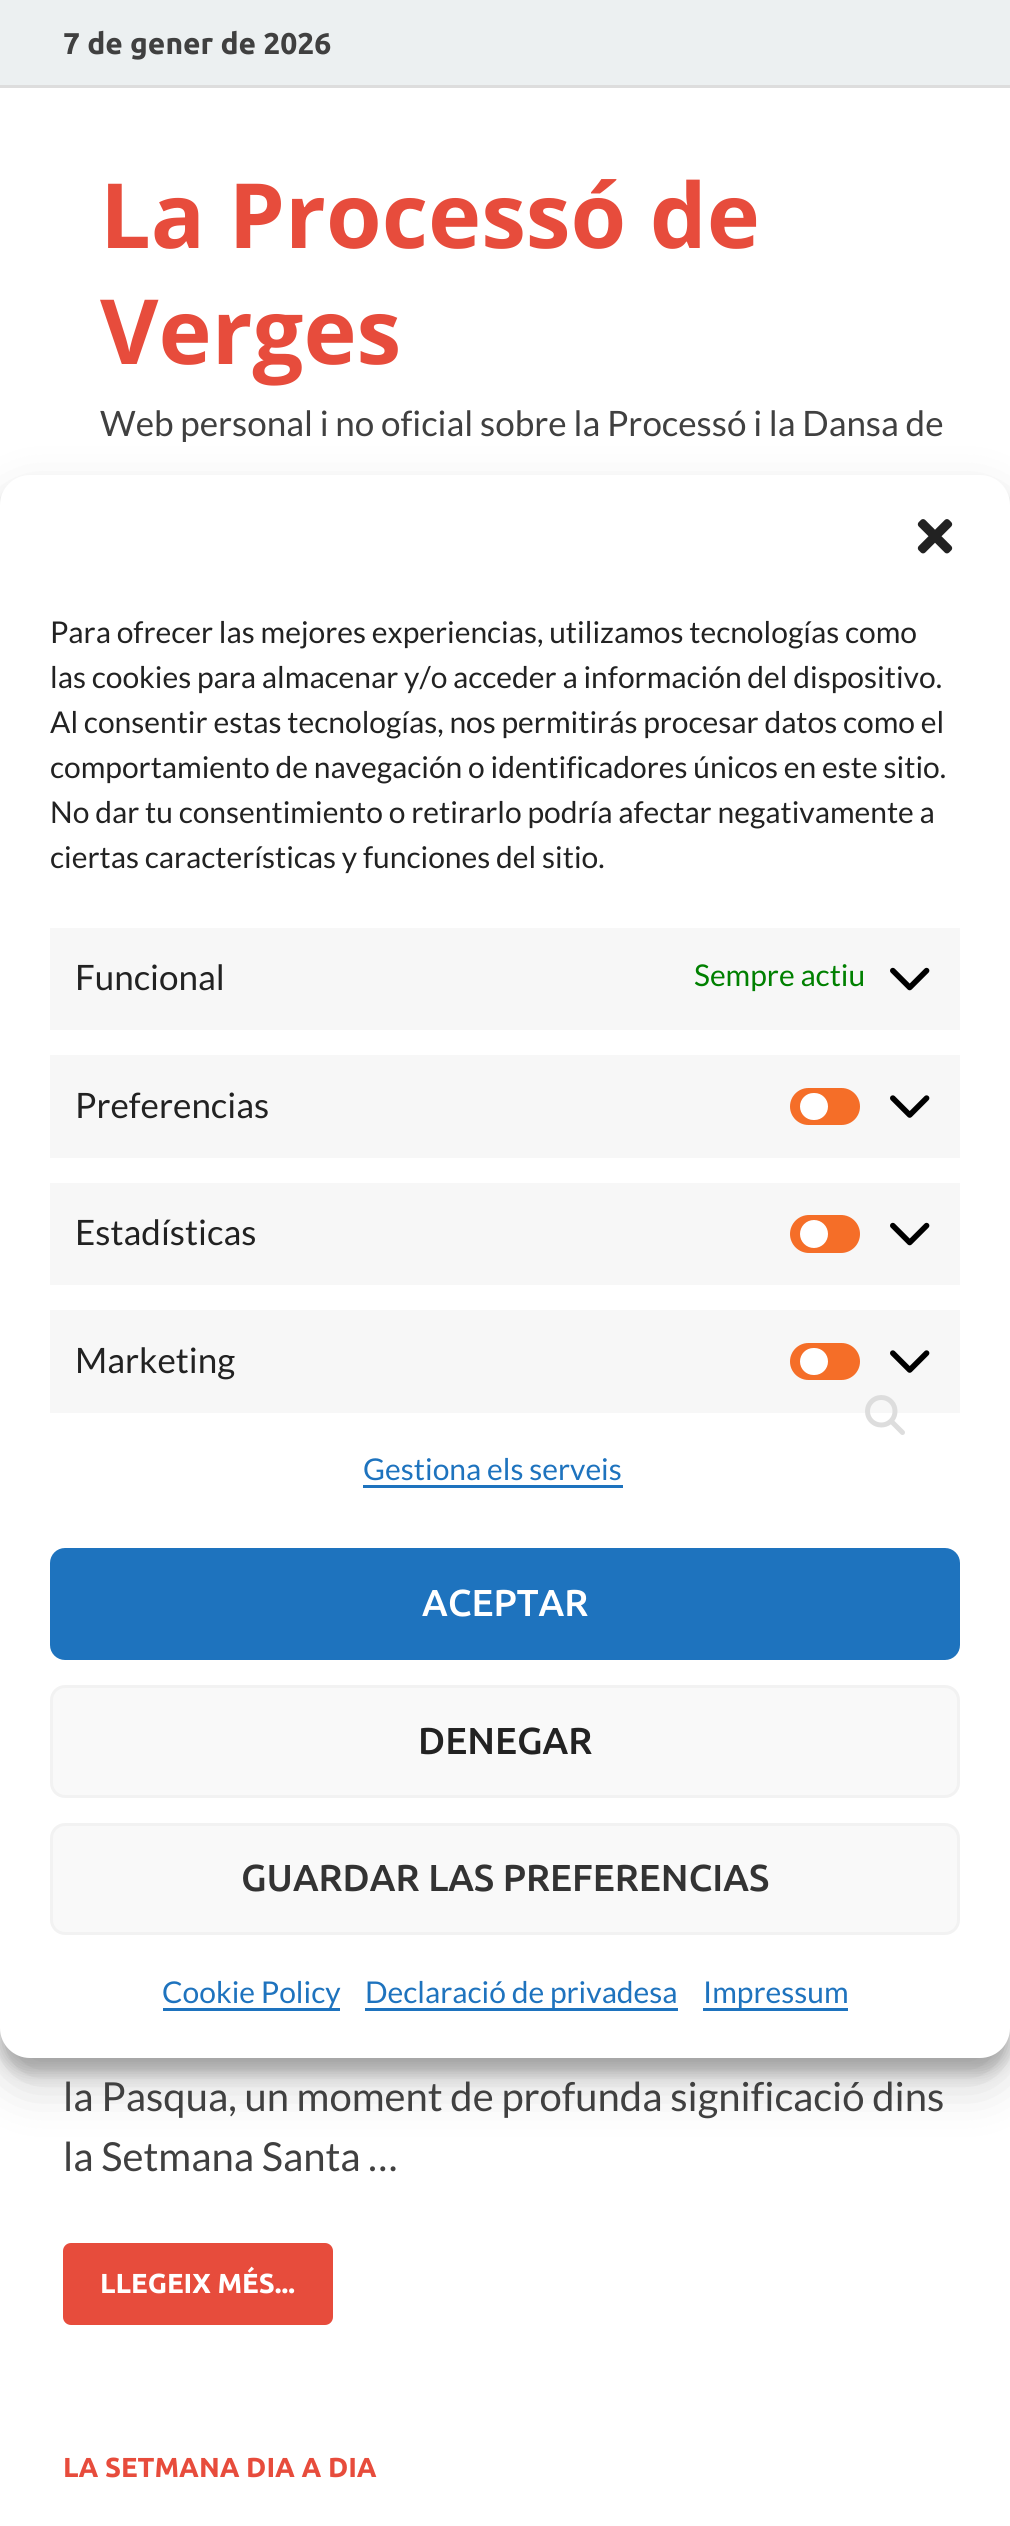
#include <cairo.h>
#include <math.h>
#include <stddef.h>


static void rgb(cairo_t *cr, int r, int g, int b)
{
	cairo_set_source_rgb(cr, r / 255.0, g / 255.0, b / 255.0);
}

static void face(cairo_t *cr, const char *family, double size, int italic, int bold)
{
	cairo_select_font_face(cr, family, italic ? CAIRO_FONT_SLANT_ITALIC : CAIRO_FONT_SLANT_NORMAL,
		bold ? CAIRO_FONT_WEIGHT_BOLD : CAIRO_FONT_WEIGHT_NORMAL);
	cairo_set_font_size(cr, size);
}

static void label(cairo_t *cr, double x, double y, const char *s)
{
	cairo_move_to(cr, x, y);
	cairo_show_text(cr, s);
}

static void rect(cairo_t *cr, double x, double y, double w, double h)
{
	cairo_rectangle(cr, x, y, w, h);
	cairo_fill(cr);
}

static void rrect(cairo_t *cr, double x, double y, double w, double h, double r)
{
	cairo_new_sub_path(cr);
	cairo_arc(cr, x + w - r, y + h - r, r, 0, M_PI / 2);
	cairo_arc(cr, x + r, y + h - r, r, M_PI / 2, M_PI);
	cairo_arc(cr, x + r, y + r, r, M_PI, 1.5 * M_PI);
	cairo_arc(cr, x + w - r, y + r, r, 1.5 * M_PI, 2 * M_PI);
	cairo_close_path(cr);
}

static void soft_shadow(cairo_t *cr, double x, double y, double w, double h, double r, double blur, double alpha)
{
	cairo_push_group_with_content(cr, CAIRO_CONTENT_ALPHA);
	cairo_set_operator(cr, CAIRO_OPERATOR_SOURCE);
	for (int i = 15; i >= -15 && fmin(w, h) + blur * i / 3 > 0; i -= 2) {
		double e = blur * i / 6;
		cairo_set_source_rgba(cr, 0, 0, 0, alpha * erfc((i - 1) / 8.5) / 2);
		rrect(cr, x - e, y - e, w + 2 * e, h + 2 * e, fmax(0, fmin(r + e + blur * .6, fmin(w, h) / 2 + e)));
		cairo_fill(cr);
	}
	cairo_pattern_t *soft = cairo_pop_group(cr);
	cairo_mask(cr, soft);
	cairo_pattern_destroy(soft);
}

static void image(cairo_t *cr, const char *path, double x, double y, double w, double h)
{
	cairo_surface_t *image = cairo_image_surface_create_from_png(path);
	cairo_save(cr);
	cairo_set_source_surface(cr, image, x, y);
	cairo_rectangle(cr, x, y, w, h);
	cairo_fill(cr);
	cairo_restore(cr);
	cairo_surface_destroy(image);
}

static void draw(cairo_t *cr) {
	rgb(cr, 255, 255, 255);
	cairo_paint(cr);
	rgb(cr, 236, 240, 241);
	rect(cr, 0, 0, 1010, 85);
	rgb(cr, 221, 221, 221);
	rect(cr, 0, 85, 1010, 3);
	face(cr, "Ubuntu", 30, 0, 1);
	rgb(cr, 64, 64, 64);
	label(cr, 63, 54, "7 de gener de 2026");
	face(cr, "Open Sans", 90, 0, 1);
	rgb(cr, 231, 76, 60);
	label(cr, 100, 248, "La Processó de");
	label(cr, 100, 364, "Verges");
	face(cr, "Lato", 35, 0, 0);
	rgb(cr, 64, 64, 64);
	label(cr, 100, 436, "Web personal i no oficial sobre la Processó i la Dansa de");
	rgb(cr, 0, 0, 0);
	soft_shadow(cr, 0, 490, 1010, 1583, 30, 7.5, 0.23);
	soft_shadow(cr, 0, 500, 1010, 1583, 30, 25, 0.19);
	rgb(cr, 255, 255, 255);
	rrect(cr, 0, 475, 1010, 1583, 30);
	cairo_fill(cr);
	rgb(cr, 247, 247, 247);
	rect(cr, 50, 1310, 910, 103);
	image(cr, "image0.png", 865, 1395, 40, 40);
	face(cr, "Lato", 40, 0, 0);
	rgb(cr, 64, 64, 64);
	label(cr, 63, 2111, "la Pasqua, un moment de profunda significació dins");
	label(cr, 63, 2171, "la Setmana Santa …");
	rgb(cr, 231, 76, 60);
	rrect(cr, 63, 2243, 270, 82, 8);
	cairo_fill(cr);
	face(cr, "Ubuntu", 27.5, 0, 1);
	rgb(cr, 255, 255, 255);
	label(cr, 100, 2293, "LLEGEIX MÉS...");
	rgb(cr, 231, 76, 60);
	label(cr, 63, 2477, "LA SETMANA DIA A DIA");
	image(cr, "image1.png", 917, 519, 36, 35);
	face(cr, "Lato", 30, 0, 0);
	rgb(cr, 34, 34, 34);
	label(cr, 50, 643, "Para ofrecer las mejores experiencias, utilizamos tecnologías como");
	label(cr, 50, 688, "las cookies para almacenar y/o acceder a información del dispositivo.");
	label(cr, 50, 733, "Al consentir estas tecnologías, nos permitirás procesar datos como el");
	label(cr, 50, 778, "comportamiento de navegación o identificadores únicos en este sitio.");
	label(cr, 50, 823, "No dar tu consentimiento o retirarlo podría afectar negativamente a");
	label(cr, 50, 868, "ciertas características y funciones del sitio.");
	rgb(cr, 247, 247, 247);
	rect(cr, 50, 928, 910, 102);
	face(cr, "Lato", 35, 0, 0);
	rgb(cr, 34, 34, 34);
	label(cr, 75, 990, "Funcional");
	face(cr, "Lato", 30, 0, 0);
	rgb(cr, 0, 128, 0);
	label(cr, 694, 986, "Sempre actiu");
	image(cr, "image2.png", 890, 967, 40, 24);
	rgb(cr, 247, 247, 247);
	rect(cr, 50, 1055, 910, 103);
	face(cr, "Lato", 35, 0, 0);
	rgb(cr, 34, 34, 34);
	label(cr, 75, 1118, "Preferencias");
	rgb(cr, 245, 110, 40);
	rrect(cr, 790, 1088, 70, 37, 18.5);
	cairo_fill(cr);
	rgb(cr, 255, 255, 255);
	rrect(cr, 800, 1093, 28, 27, 13.5);
	cairo_fill(cr);
	image(cr, "image3.png", 890, 1095, 40, 23);
	rgb(cr, 247, 247, 247);
	rect(cr, 50, 1183, 910, 102);
	rgb(cr, 34, 34, 34);
	label(cr, 75, 1245, "Estadísticas");
	rgb(cr, 245, 110, 40);
	rrect(cr, 790, 1215, 70, 38, 19);
	cairo_fill(cr);
	rgb(cr, 255, 255, 255);
	cairo_arc(cr, 814, 1234, 14, 0, 2 * M_PI);
	cairo_fill(cr);
	image(cr, "image2.png", 890, 1222, 40, 24);
	rgb(cr, 34, 34, 34);
	label(cr, 75, 1373, "Marketing");
	rgb(cr, 245, 110, 40);
	rrect(cr, 790, 1343, 70, 37, 18.5);
	cairo_fill(cr);
	rgb(cr, 255, 255, 255);
	rrect(cr, 800, 1348, 28, 27, 13.5);
	cairo_fill(cr);
	image(cr, "image3.png", 890, 1350, 40, 23);
	face(cr, "Lato", 30, 0, 0);
	rgb(cr, 30, 115, 190);
	label(cr, 363, 1480, "Gestiona els serveis");
	rect(cr, 363, 1485, 260, 3);
	rrect(cr, 51.5, 1549.5, 907, 109, 13.5);
	cairo_fill_preserve(cr);
	cairo_set_line_width(cr, 3);
	cairo_stroke(cr);
	face(cr, "Ubuntu Medium", 37.5, 0, 0);
	rgb(cr, 255, 255, 255);
	label(cr, 422, 1616, "ACEPTAR");
	rgb(cr, 249, 249, 249);
	rrect(cr, 51.5, 1686.5, 907, 110, 13.5);
	cairo_fill_preserve(cr);
	rgb(cr, 242, 242, 242);
	cairo_stroke(cr);
	rgb(cr, 34, 34, 34);
	label(cr, 418, 1754, "DENEGAR");
	rgb(cr, 249, 249, 249);
	rrect(cr, 51.5, 1824.5, 907, 109, 13.5);
	cairo_fill_preserve(cr);
	rgb(cr, 242, 242, 242);
	cairo_stroke(cr);
	rgb(cr, 51, 51, 51);
	label(cr, 241, 1891, "GUARDAR LAS PREFERENCIAS");
	rgb(cr, 30, 115, 190);
	rect(cr, 163, 2008, 177, 3);
	face(cr, "Lato", 30, 0, 0);
	label(cr, 162, 2003, "Cookie Policy");
	rect(cr, 365, 2008, 313, 3);
	label(cr, 365, 2003, "Declaració de privadesa");
	rect(cr, 703, 2008, 145, 3);
	label(cr, 703, 2003, "Impressum");
}

int main(void) {
	cairo_surface_t *surface = cairo_image_surface_create(CAIRO_FORMAT_RGB24, 1010, 2526);
	cairo_t *cr = cairo_create(surface);
	cairo_font_options_t *options = cairo_font_options_create();
	cairo_font_options_set_hint_metrics(options, CAIRO_HINT_METRICS_OFF);
	cairo_font_options_set_hint_style(options, CAIRO_HINT_STYLE_NONE);
	cairo_set_font_options(cr, options);
	cairo_set_miter_limit(cr, 4);
	draw(cr);
	cairo_surface_write_to_png(surface, "render.png");
	cairo_font_options_destroy(options);
	cairo_destroy(cr);
	cairo_surface_destroy(surface);
	return 0;
}
